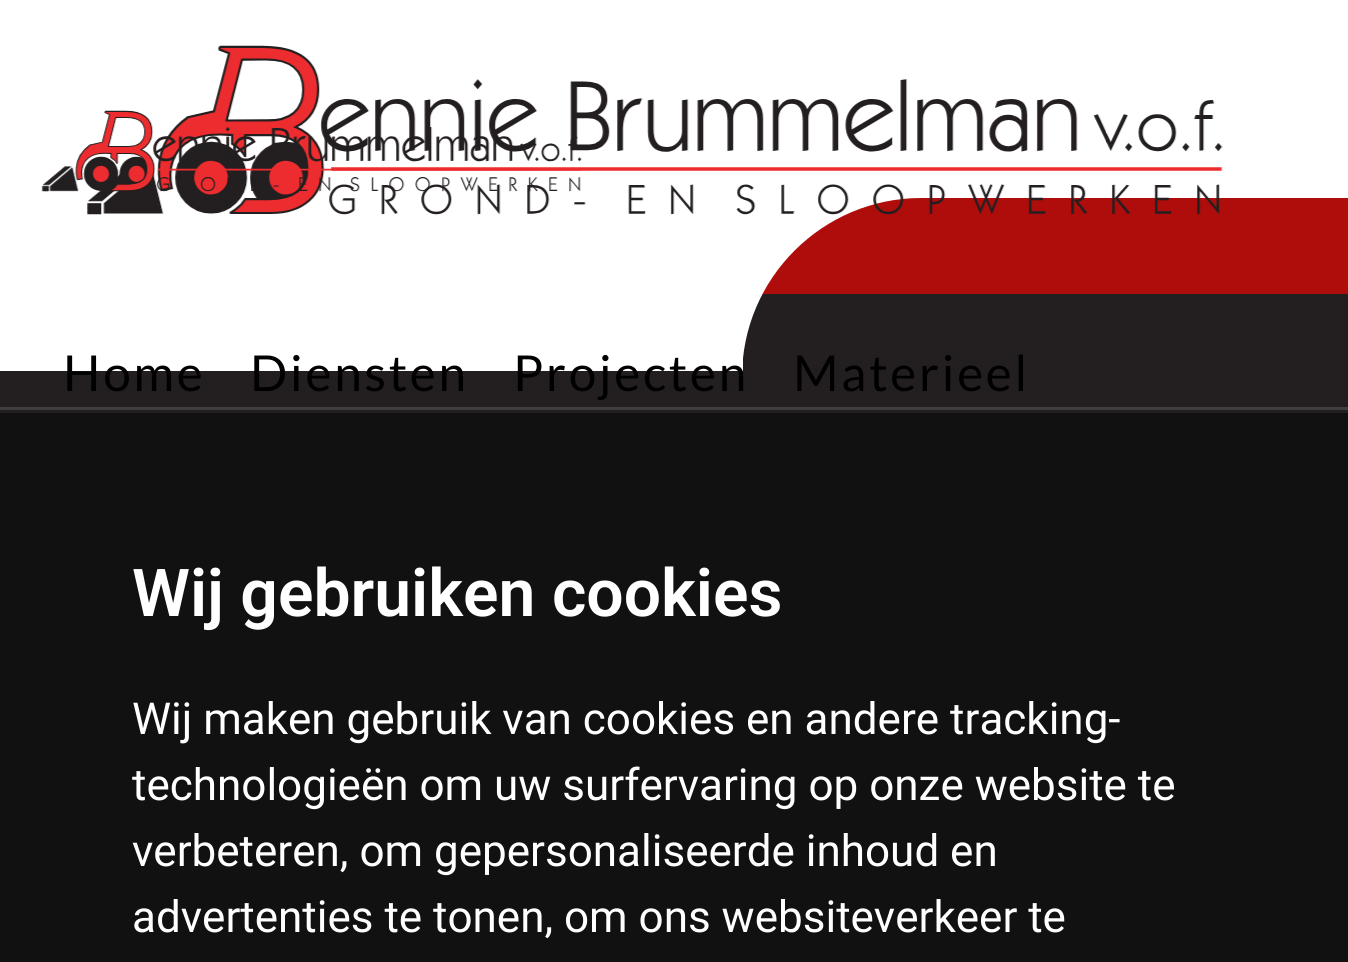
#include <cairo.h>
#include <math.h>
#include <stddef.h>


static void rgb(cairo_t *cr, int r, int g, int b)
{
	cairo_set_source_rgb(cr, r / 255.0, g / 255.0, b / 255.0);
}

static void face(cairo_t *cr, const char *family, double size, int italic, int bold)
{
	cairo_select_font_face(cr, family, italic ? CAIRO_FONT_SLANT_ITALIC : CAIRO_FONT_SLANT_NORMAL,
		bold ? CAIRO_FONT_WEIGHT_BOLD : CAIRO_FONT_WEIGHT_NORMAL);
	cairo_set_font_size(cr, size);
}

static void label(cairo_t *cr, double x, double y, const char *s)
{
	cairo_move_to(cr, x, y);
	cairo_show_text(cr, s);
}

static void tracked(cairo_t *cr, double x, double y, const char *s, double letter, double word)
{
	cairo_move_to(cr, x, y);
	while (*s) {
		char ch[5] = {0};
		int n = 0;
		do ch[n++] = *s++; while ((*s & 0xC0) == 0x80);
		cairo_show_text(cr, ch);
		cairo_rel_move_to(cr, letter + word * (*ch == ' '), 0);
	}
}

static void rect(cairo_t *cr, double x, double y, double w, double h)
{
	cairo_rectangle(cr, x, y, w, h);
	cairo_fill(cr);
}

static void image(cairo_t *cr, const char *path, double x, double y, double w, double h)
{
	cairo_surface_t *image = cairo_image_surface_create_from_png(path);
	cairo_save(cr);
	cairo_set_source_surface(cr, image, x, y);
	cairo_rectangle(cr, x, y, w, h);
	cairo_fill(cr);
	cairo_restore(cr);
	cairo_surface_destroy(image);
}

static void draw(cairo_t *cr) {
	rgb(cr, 35, 31, 32);
	cairo_paint(cr);
	rgb(cr, 255, 255, 255);
	rect(cr, 0, 0, 1348, 198);
	rect(cr, 0, 198, 743, 173);
	rgb(cr, 175, 13, 11);
	rect(cr, 762, 198, 586, 96);
	cairo_save(cr);
	cairo_rectangle(cr, 743, 198, 178, 179);
	cairo_clip(cr);
	rgb(cr, 255, 255, 255);
	cairo_new_path(cr);
	cairo_move_to(cr, 921, 198);
	cairo_line_to(cr, 742, 198);
	cairo_line_to(cr, 742, 377);
	cairo_curve_to(cr, 742, 278, 823, 198, 921, 198);
	cairo_close_path(cr);
	cairo_fill(cr);
	cairo_restore(cr);
	image(cr, "image1.png", 87, 45, 1136, 170);
	image(cr, "image0.png", 41, 110, 541, 82);
	face(cr, "Lato", 49.5, 0, 0);
	rgb(cr, 0, 0, 0);
	tracked(cr, 63, 391, "Home", 2.75, 0);
	tracked(cr, 250, 391, "Diensten", 2.75, 0);
	tracked(cr, 513, 391, "Projecten", 2.75, 0);
	tracked(cr, 793, 391, "Materieel", 2.75, 0);
	rgb(cr, 64, 61, 62);
	rect(cr, 0, 407, 1348, 3);
	rgb(cr, 17, 17, 17);
	rect(cr, 0, 413, 1348, 549);
	face(cr, "Roboto SemiBold", 66, 0, 0);
	rgb(cr, 255, 255, 255);
	label(cr, 132, 616, "Wij gebruiken cookies");
	face(cr, "Roboto", 44, 0, 0);
	label(cr, 132, 734, "Wij maken gebruik van cookies en andere tracking-");
	label(cr, 132, 800, "technologieën om uw surfervaring op onze website te");
	label(cr, 132, 866, "verbeteren, om gepersonaliseerde inhoud en");
	label(cr, 132, 932, "advertenties te tonen, om ons websiteverkeer te");
}

int main(void) {
	cairo_surface_t *surface = cairo_image_surface_create(CAIRO_FORMAT_RGB24, 1348, 962);
	cairo_t *cr = cairo_create(surface);
	cairo_font_options_t *options = cairo_font_options_create();
	cairo_font_options_set_hint_metrics(options, CAIRO_HINT_METRICS_OFF);
	cairo_font_options_set_hint_style(options, CAIRO_HINT_STYLE_NONE);
	cairo_set_font_options(cr, options);
	cairo_set_miter_limit(cr, 4);
	draw(cr);
	cairo_surface_write_to_png(surface, "render.png");
	cairo_font_options_destroy(options);
	cairo_destroy(cr);
	cairo_surface_destroy(surface);
	return 0;
}
